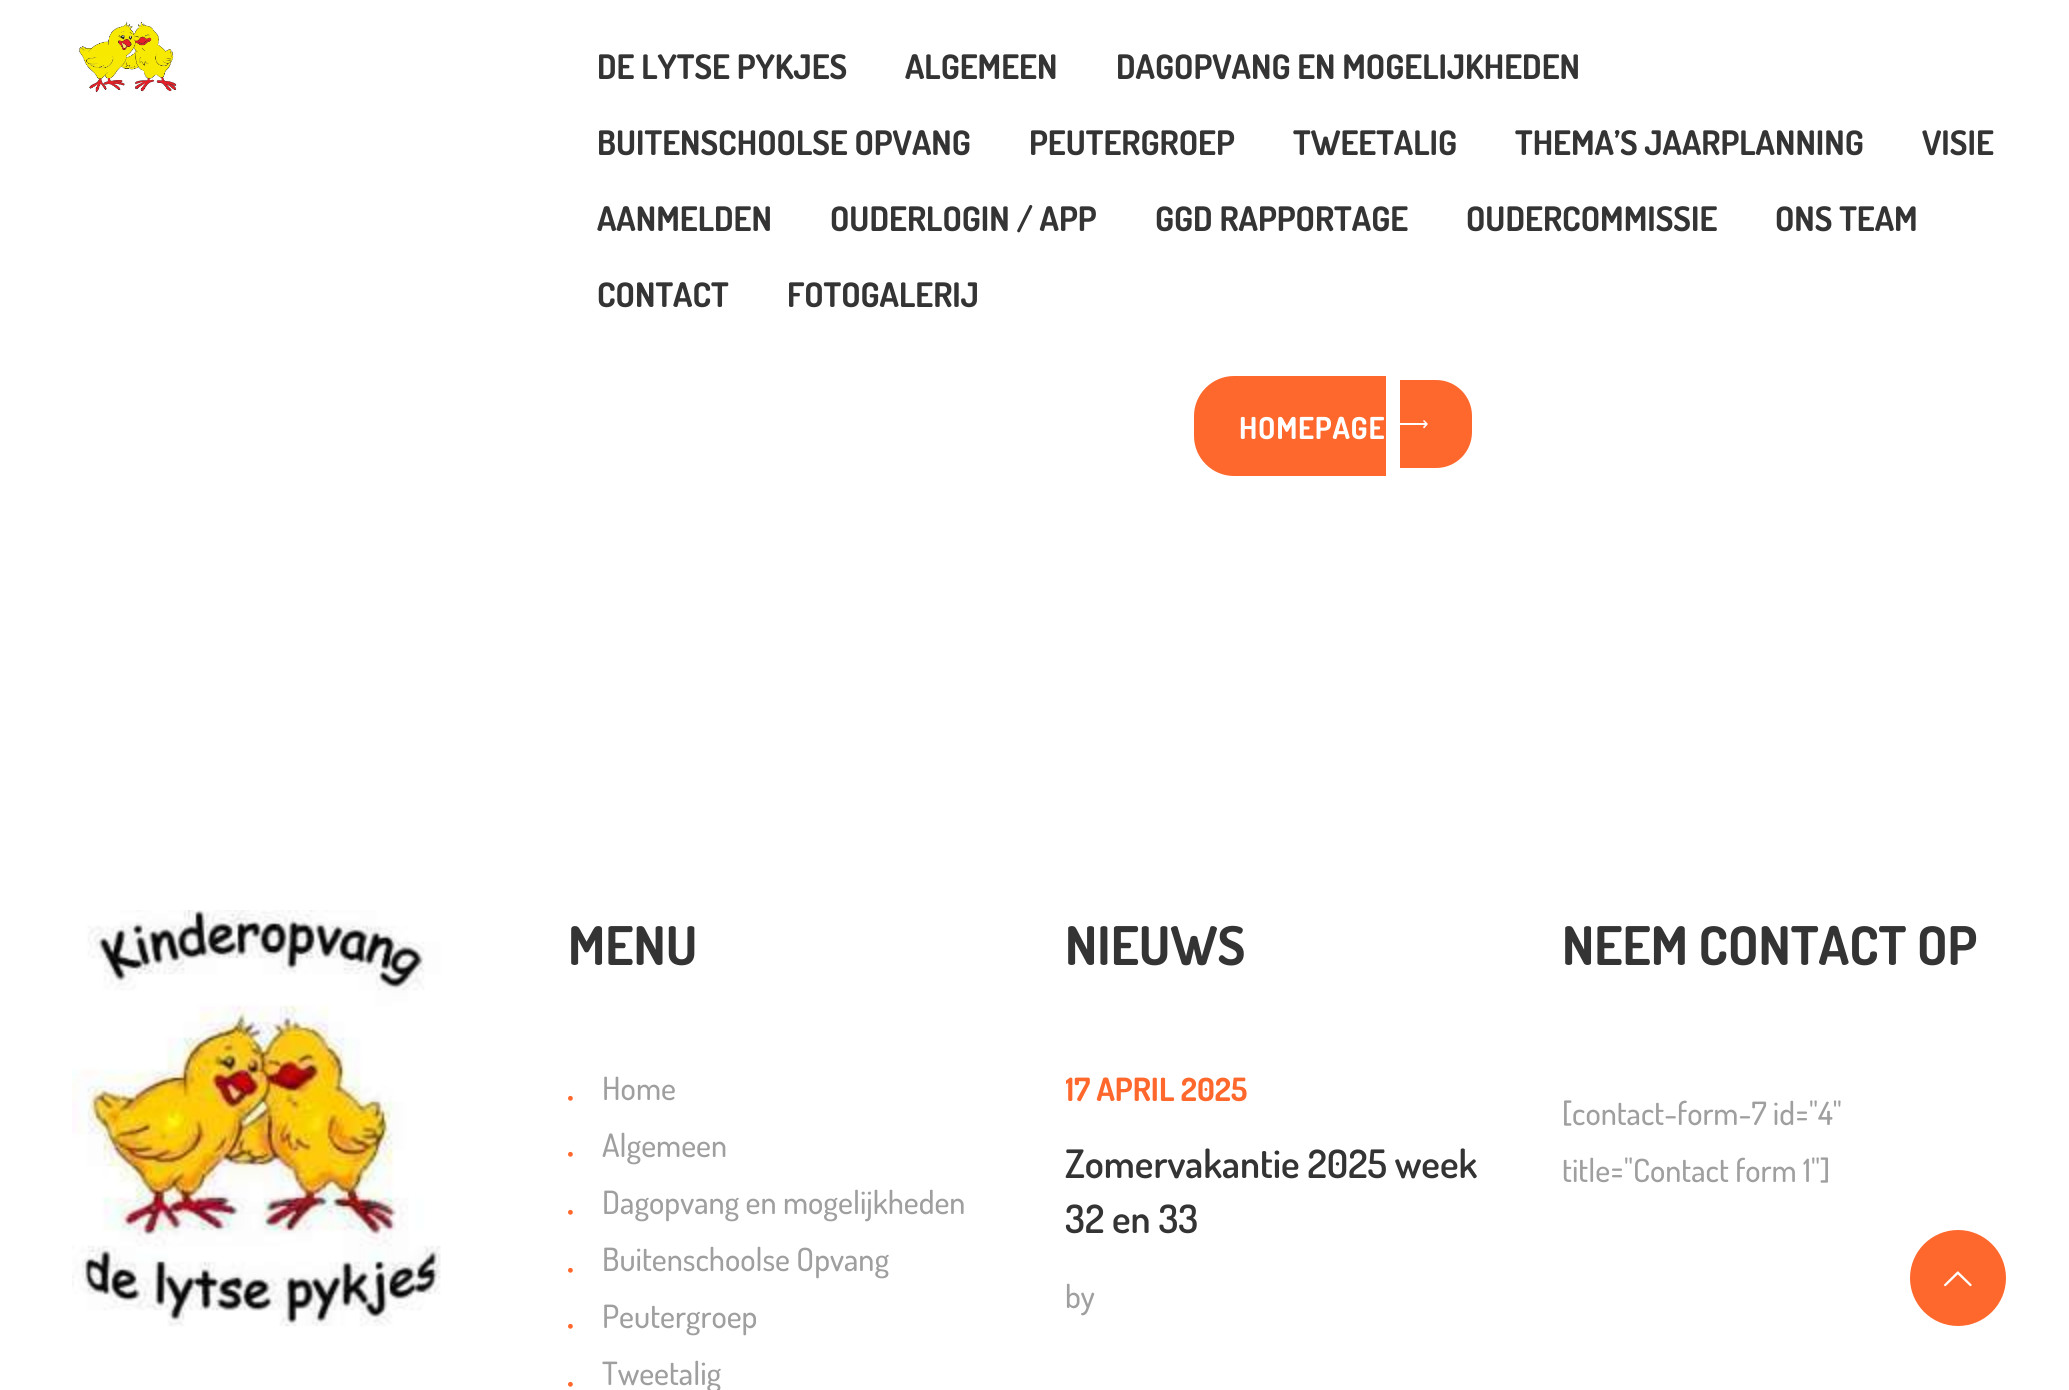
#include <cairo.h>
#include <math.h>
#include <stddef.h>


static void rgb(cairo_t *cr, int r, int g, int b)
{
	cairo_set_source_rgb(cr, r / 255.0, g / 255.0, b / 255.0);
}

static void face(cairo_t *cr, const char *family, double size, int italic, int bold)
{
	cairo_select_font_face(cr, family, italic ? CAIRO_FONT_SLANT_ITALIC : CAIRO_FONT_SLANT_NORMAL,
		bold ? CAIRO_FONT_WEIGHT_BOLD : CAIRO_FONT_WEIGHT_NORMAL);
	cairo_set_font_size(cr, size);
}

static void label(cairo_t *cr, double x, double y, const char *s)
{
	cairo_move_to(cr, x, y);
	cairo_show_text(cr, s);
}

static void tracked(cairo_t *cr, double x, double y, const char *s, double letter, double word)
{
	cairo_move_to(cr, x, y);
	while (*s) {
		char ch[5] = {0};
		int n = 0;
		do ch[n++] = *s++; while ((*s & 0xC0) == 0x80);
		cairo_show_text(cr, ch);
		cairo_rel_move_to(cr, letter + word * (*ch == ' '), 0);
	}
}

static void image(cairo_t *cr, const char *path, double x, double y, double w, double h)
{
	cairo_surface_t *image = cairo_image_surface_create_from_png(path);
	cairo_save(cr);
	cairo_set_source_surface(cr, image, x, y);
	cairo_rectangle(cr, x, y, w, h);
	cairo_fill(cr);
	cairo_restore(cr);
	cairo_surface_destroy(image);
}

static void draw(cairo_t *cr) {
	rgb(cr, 255, 255, 255);
	cairo_paint(cr);
	image(cr, "image0.png", 79, 21, 98, 71);
	face(cr, "Dosis", 33.75, 0, 1);
	rgb(cr, 52, 52, 52);
	label(cr, 597, 79, "DE LYTSE PYKJES");
	label(cr, 905, 79, "ALGEMEEN");
	label(cr, 1116, 79, "DAGOPVANG EN MOGELIJKHEDEN");
	label(cr, 597, 155, "BUITENSCHOOLSE OPVANG");
	label(cr, 1029, 155, "PEUTERGROEP");
	label(cr, 1293, 155, "TWEETALIG");
	label(cr, 1515, 155, "THEMA’S JAARPLANNING");
	label(cr, 1922, 155, "VISIE");
	label(cr, 597, 231, "AANMELDEN");
	label(cr, 830, 231, "OUDERLOGIN / APP");
	label(cr, 1155, 231, "GGD RAPPORTAGE");
	label(cr, 1466, 231, "OUDERCOMMISSIE");
	label(cr, 1775, 231, "ONS TEAM");
	label(cr, 597, 307, "CONTACT");
	label(cr, 787, 307, "FOTOGALERIJ");
	rgb(cr, 255, 104, 45);
	cairo_new_path(cr);
	cairo_move_to(cr, 1234, 376);
	cairo_line_to(cr, 1386, 376);
	cairo_line_to(cr, 1386, 476);
	cairo_line_to(cr, 1234, 476);
	cairo_curve_to(cr, 1212, 476, 1194, 458, 1194, 436);
	cairo_line_to(cr, 1194, 416);
	cairo_curve_to(cr, 1194, 394, 1212, 376, 1234, 376);
	cairo_close_path(cr);
	cairo_fill(cr);
	face(cr, "Dosis", 30.25, 0, 1);
	rgb(cr, 255, 255, 255);
	tracked(cr, 1239, 439, "HOMEPAGE", 0.75, 0);
	rgb(cr, 255, 104, 45);
	cairo_new_path(cr);
	cairo_move_to(cr, 1400, 380);
	cairo_line_to(cr, 1436, 380);
	cairo_curve_to(cr, 1456, 380, 1472, 396, 1472, 416);
	cairo_line_to(cr, 1472, 432);
	cairo_curve_to(cr, 1472, 452, 1456, 468, 1436, 468);
	cairo_line_to(cr, 1400, 468);
	cairo_close_path(cr);
	cairo_fill(cr);
	rgb(cr, 255, 255, 255);
	cairo_new_path(cr);
	cairo_move_to(cr, 1424, 420);
	cairo_line_to(cr, 1423, 421);
	cairo_line_to(cr, 1425, 423);
	cairo_line_to(cr, 1400, 423);
	cairo_line_to(cr, 1400, 425);
	cairo_line_to(cr, 1425, 425);
	cairo_line_to(cr, 1423, 427);
	cairo_line_to(cr, 1424, 428.5);
	cairo_line_to(cr, 1428, 424);
	cairo_close_path(cr);
	cairo_fill(cr);
	image(cr, "image1.png", 72, 910, 369, 417);
	face(cr, "Dosis", 53.25, 0, 1);
	rgb(cr, 52, 52, 52);
	label(cr, 568, 965, "MENU");
	image(cr, "image2.png", 568, 1095, 5, 6);
	face(cr, "Dosis Medium", 32, 0, 0);
	rgb(cr, 159, 159, 159);
	label(cr, 602, 1100, "Home");
	image(cr, "image2.png", 568, 1151, 5, 6);
	label(cr, 602, 1157, "Algemeen");
	image(cr, "image2.png", 568, 1209, 5, 6);
	label(cr, 602, 1214, "Dagopvang en mogelijkheden");
	image(cr, "image2.png", 568, 1267, 5, 6);
	label(cr, 602, 1271, "Buitenschoolse Opvang");
	image(cr, "image2.png", 568, 1323, 5, 6);
	label(cr, 602, 1328, "Peutergroep");
	image(cr, "image2.png", 568, 1381, 5, 6);
	label(cr, 602, 1385, "Tweetalig");
	face(cr, "Dosis", 53.25, 0, 1);
	rgb(cr, 52, 52, 52);
	label(cr, 1065, 965, "NIEUWS");
	cairo_save(cr);
	cairo_rectangle(cr, 1066, 1062, 436, 264);
	cairo_clip(cr);
	face(cr, "Dosis", 32, 0, 1);
	rgb(cr, 255, 104, 45);
	label(cr, 1065, 1101, "17 APRIL 2025");
	cairo_restore(cr);
	face(cr, "Dosis SemiBold", 39.1, 0, 0);
	label(cr, 1065, 1178, "Zomervakantie 2025 week");
	label(cr, 1065, 1233, "32 en 33");
	face(cr, "Dosis Medium", 32, 0, 0);
	rgb(cr, 159, 159, 159);
	label(cr, 1065, 1308, "by");
	face(cr, "Dosis", 53.25, 0, 1);
	rgb(cr, 52, 52, 52);
	label(cr, 1562, 965, "NEEM CONTACT OP");
	face(cr, "Dosis Medium", 32, 0, 0);
	rgb(cr, 159, 159, 159);
	label(cr, 1562, 1125, "[contact-form-7 id=\"4\"");
	label(cr, 1562, 1182, "title=\"Contact form 1\"]");
	rgb(cr, 255, 104, 45);
	cairo_new_path(cr);
	cairo_arc(cr, 1958, 1278, 48, 0, 2 * M_PI);
	cairo_fill(cr);
	image(cr, "image3.png", 1944, 1271, 28, 16);
}

int main(void) {
	cairo_surface_t *surface = cairo_image_surface_create(CAIRO_FORMAT_RGB24, 2069, 1390);
	cairo_t *cr = cairo_create(surface);
	cairo_font_options_t *options = cairo_font_options_create();
	cairo_font_options_set_hint_metrics(options, CAIRO_HINT_METRICS_OFF);
	cairo_font_options_set_hint_style(options, CAIRO_HINT_STYLE_NONE);
	cairo_set_font_options(cr, options);
	cairo_set_miter_limit(cr, 4);
	draw(cr);
	cairo_surface_write_to_png(surface, "render.png");
	cairo_font_options_destroy(options);
	cairo_destroy(cr);
	cairo_surface_destroy(surface);
	return 0;
}
